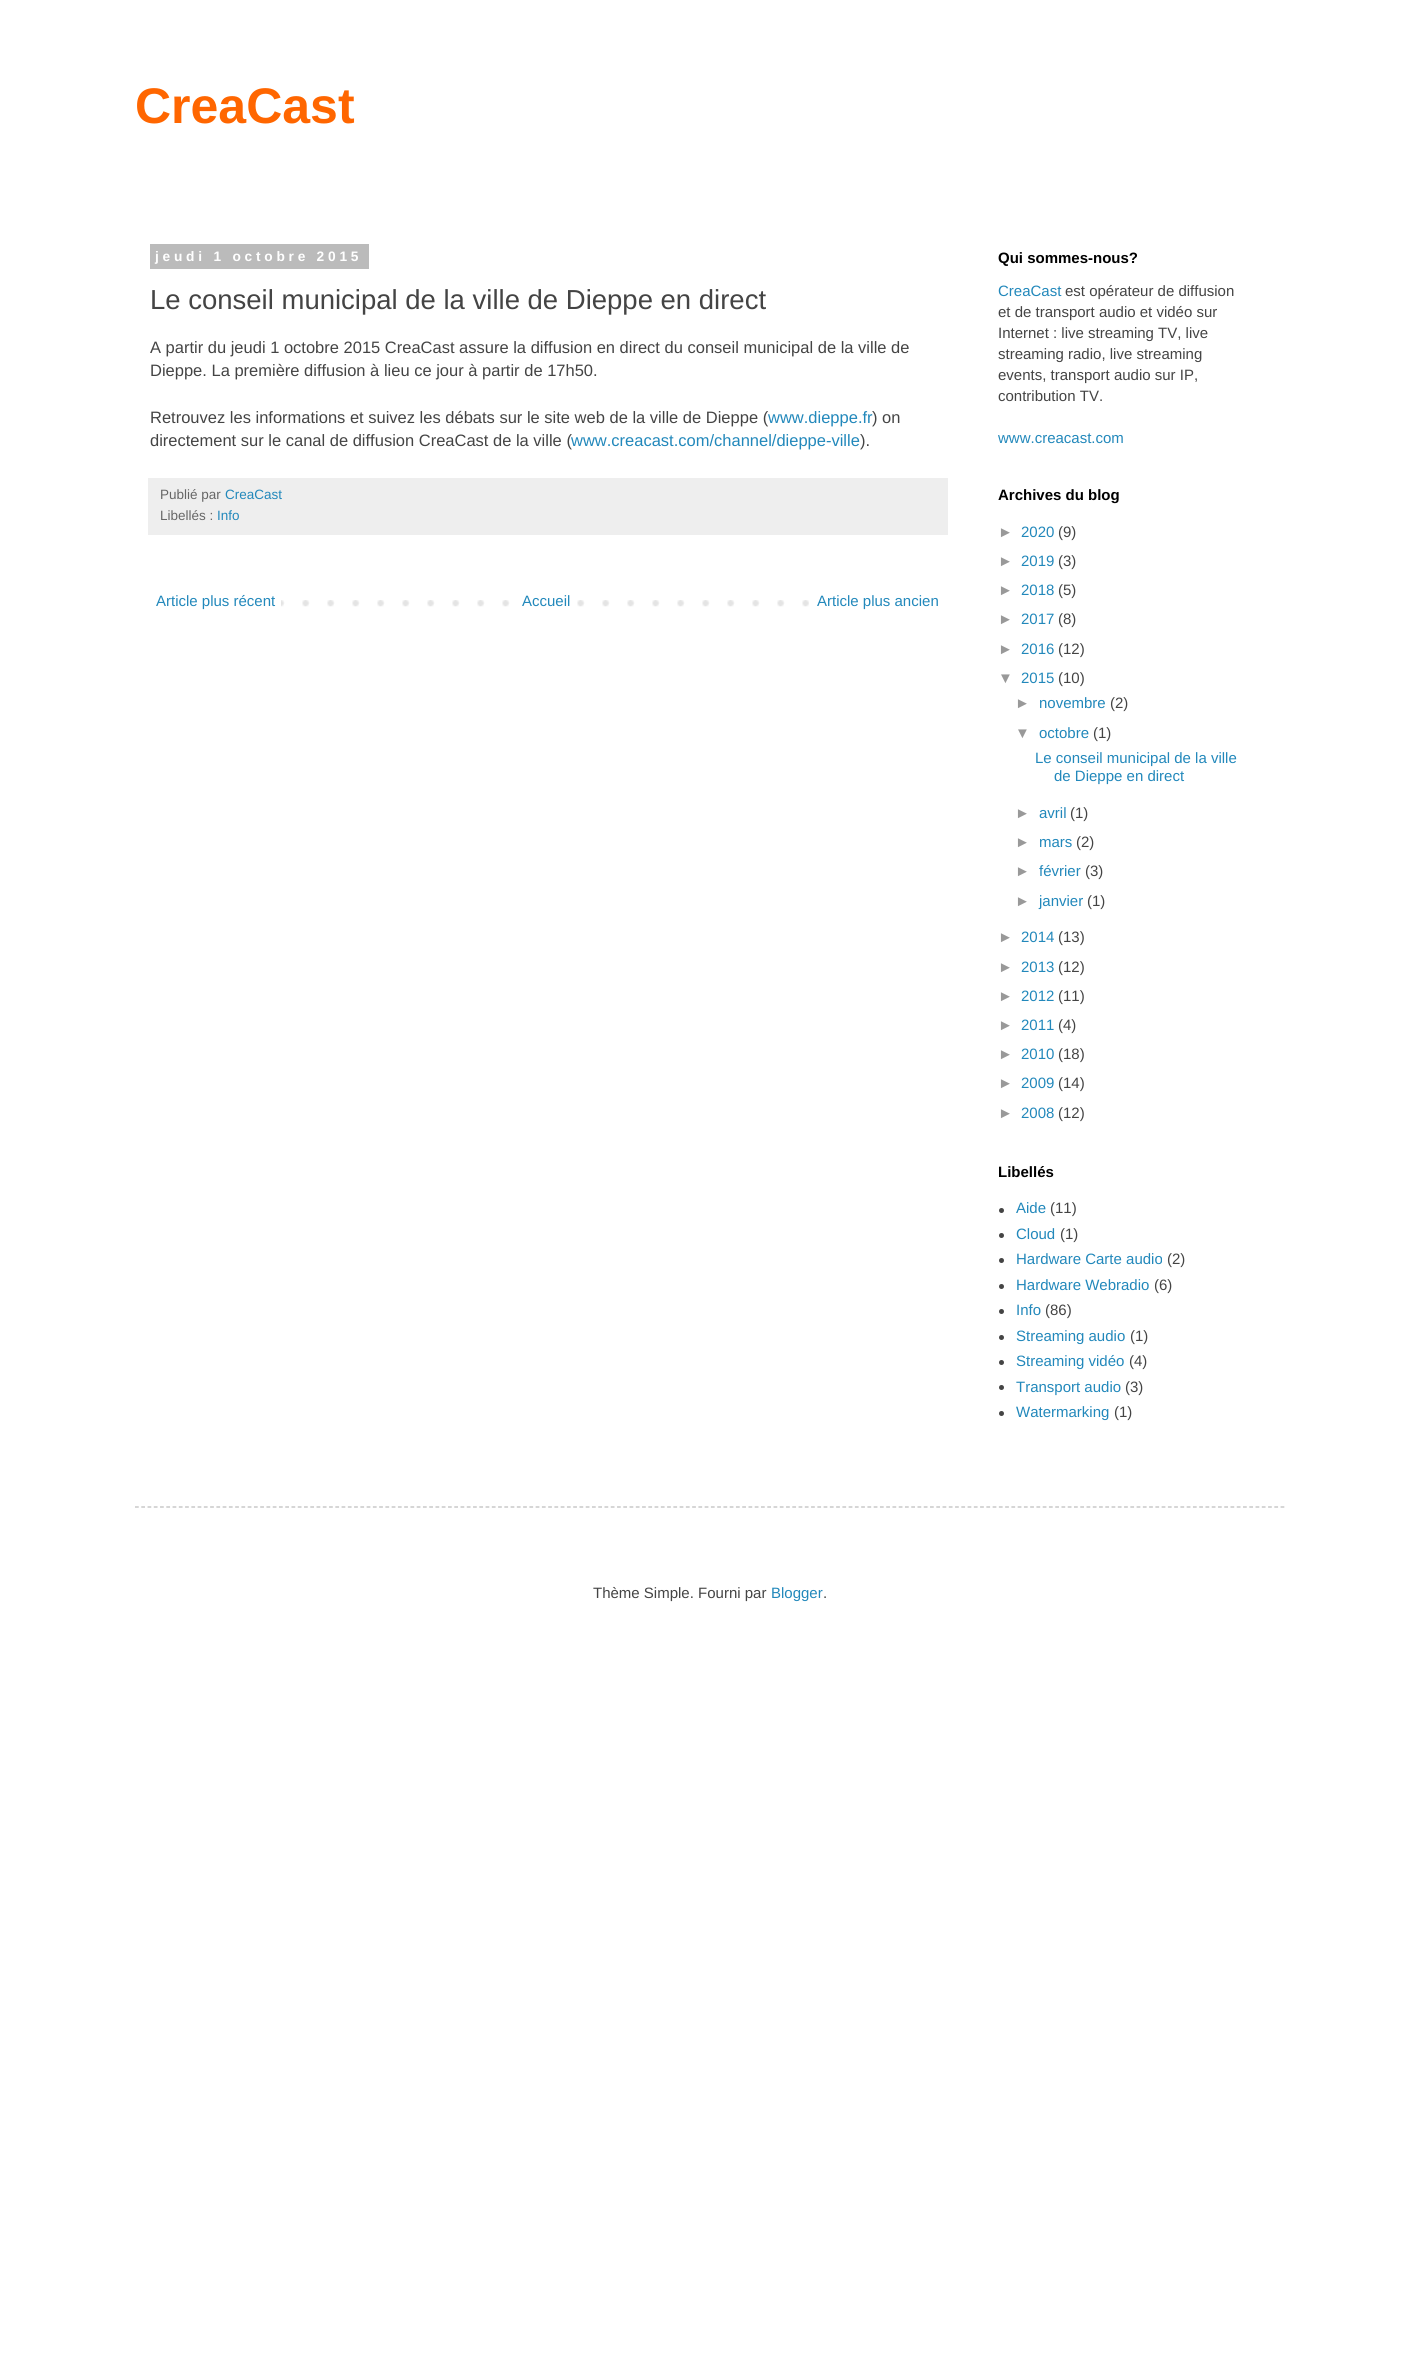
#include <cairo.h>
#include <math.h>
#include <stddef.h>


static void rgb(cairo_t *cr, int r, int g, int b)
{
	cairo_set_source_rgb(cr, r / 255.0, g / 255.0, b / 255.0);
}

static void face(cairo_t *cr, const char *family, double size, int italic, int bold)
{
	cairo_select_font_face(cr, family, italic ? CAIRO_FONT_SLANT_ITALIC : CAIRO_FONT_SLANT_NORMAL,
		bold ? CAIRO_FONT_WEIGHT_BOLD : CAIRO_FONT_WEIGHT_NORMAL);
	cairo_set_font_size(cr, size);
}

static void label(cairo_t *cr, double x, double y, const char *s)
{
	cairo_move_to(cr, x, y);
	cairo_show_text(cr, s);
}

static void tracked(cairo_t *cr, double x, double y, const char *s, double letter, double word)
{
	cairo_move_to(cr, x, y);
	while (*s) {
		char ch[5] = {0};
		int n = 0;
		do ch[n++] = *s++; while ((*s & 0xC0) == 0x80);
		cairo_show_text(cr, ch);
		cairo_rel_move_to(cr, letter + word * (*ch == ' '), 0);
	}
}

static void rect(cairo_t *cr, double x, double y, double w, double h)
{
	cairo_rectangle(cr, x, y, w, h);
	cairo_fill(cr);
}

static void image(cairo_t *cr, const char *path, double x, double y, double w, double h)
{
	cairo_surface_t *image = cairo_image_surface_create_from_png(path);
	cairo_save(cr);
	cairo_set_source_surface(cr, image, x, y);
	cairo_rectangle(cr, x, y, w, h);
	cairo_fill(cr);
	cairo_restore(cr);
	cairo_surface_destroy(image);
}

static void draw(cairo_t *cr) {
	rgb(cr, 255, 255, 255);
	cairo_paint(cr);
	face(cr, "Liberation Sans", 50, 0, 1);
	rgb(cr, 255, 102, 0);
	label(cr, 135, 123, "CreaCast");
	rgb(cr, 187, 187, 187);
	rect(cr, 150, 244, 219, 25);
	face(cr, "Liberation Sans", 13.75, 0, 1);
	rgb(cr, 255, 255, 255);
	tracked(cr, 155, 261, "jeudi 1 octobre 2015", 3.75, 0);
	face(cr, "Liberation Sans", 27.5, 0, 0);
	rgb(cr, 68, 68, 68);
	label(cr, 150, 309, "Le conseil municipal de la ville de Dieppe en direct");
	face(cr, "Liberation Sans", 16.5, 0, 0);
	label(cr, 150, 353, "A partir du jeudi 1 octobre 2015 CreaCast assure la diffusion en direct du conseil municipal de la ville de");
	label(cr, 150, 376, "Dieppe. La première diffusion à lieu ce jour à partir de 17h50.");
	label(cr, 150, 423, "Retrouvez les informations et suivez les débats sur le site web de la ville de Dieppe (");
	rgb(cr, 34, 136, 187);
	label(cr, 768, 423, "www.dieppe.fr");
	rgb(cr, 68, 68, 68);
	label(cr, 872, 423, ") on");
	label(cr, 150, 446, "directement sur le canal de diffusion CreaCast de la ville (");
	rgb(cr, 34, 136, 187);
	label(cr, 571, 446, "www.creacast.com/channel/dieppe-ville");
	rgb(cr, 68, 68, 68);
	label(cr, 860, 446, ").");
	rgb(cr, 238, 238, 238);
	rect(cr, 148, 478, 800, 57);
	face(cr, "Liberation Sans", 13.5, 0, 0);
	rgb(cr, 102, 102, 102);
	label(cr, 160, 499, "Publié par");
	rgb(cr, 34, 136, 187);
	label(cr, 225, 499, "CreaCast");
	rgb(cr, 102, 102, 102);
	label(cr, 160, 520, "Libellés :");
	rgb(cr, 34, 136, 187);
	label(cr, 217, 520, "Info");
	image(cr, "image0.png", 281, 600, 528, 7);
	face(cr, "Liberation Sans", 15, 0, 0);
	label(cr, 156, 606, "Article plus récent");
	rgb(cr, 255, 255, 255);
	rect(cr, 527, 600, 33, 7);
	rgb(cr, 34, 136, 187);
	label(cr, 522, 606, "Accueil");
	label(cr, 817, 606, "Article plus ancien");
	face(cr, "Liberation Sans", 15, 0, 1);
	rgb(cr, 0, 0, 0);
	label(cr, 998, 263, "Qui sommes-nous?");
	face(cr, "Liberation Sans", 15, 0, 0);
	rgb(cr, 34, 136, 187);
	label(cr, 998, 296, "CreaCast");
	rgb(cr, 68, 68, 68);
	label(cr, 1065, 296, "est opérateur de diffusion");
	label(cr, 998, 317, "et de transport audio et vidéo sur");
	label(cr, 998, 338, "Internet : live streaming TV, live");
	label(cr, 998, 359, "streaming radio, live streaming");
	label(cr, 998, 380, "events, transport audio sur IP,");
	label(cr, 998, 401, "contribution TV.");
	rgb(cr, 34, 136, 187);
	label(cr, 998, 443, "www.creacast.com");
	face(cr, "Liberation Sans", 15, 0, 1);
	rgb(cr, 0, 0, 0);
	label(cr, 998, 500, "Archives du blog");
	face(cr, "Liberation Sans", 15, 0, 0);
	rgb(cr, 153, 153, 153);
	label(cr, 998, 537, "►");
	rgb(cr, 34, 136, 187);
	label(cr, 1021, 537, "2020");
	rgb(cr, 68, 68, 68);
	label(cr, 1058, 537, "(9)");
	rgb(cr, 153, 153, 153);
	label(cr, 998, 566, "►");
	rgb(cr, 34, 136, 187);
	label(cr, 1021, 566, "2019");
	rgb(cr, 68, 68, 68);
	label(cr, 1058, 566, "(3)");
	rgb(cr, 153, 153, 153);
	label(cr, 998, 595, "►");
	rgb(cr, 34, 136, 187);
	label(cr, 1021, 595, "2018");
	rgb(cr, 68, 68, 68);
	label(cr, 1058, 595, "(5)");
	rgb(cr, 153, 153, 153);
	label(cr, 998, 624, "►");
	rgb(cr, 34, 136, 187);
	label(cr, 1021, 624, "2017");
	rgb(cr, 68, 68, 68);
	label(cr, 1058, 624, "(8)");
	rgb(cr, 153, 153, 153);
	label(cr, 998, 654, "►");
	rgb(cr, 34, 136, 187);
	label(cr, 1021, 654, "2016");
	rgb(cr, 68, 68, 68);
	label(cr, 1058, 654, "(12)");
	rgb(cr, 153, 153, 153);
	label(cr, 998, 683, "▼");
	rgb(cr, 34, 136, 187);
	label(cr, 1021, 683, "2015");
	rgb(cr, 68, 68, 68);
	label(cr, 1058, 683, "(10)");
	rgb(cr, 153, 153, 153);
	label(cr, 1015, 708, "►");
	rgb(cr, 34, 136, 187);
	label(cr, 1039, 708, "novembre");
	rgb(cr, 68, 68, 68);
	label(cr, 1110, 708, "(2)");
	rgb(cr, 153, 153, 153);
	label(cr, 1015, 738, "▼");
	rgb(cr, 34, 136, 187);
	label(cr, 1039, 738, "octobre");
	rgb(cr, 68, 68, 68);
	label(cr, 1093, 738, "(1)");
	rgb(cr, 34, 136, 187);
	label(cr, 1035, 763, "Le conseil municipal de la ville");
	label(cr, 1054, 781, "de Dieppe en direct");
	rgb(cr, 153, 153, 153);
	label(cr, 1015, 818, "►");
	rgb(cr, 34, 136, 187);
	label(cr, 1039, 818, "avril");
	rgb(cr, 68, 68, 68);
	label(cr, 1070, 818, "(1)");
	rgb(cr, 153, 153, 153);
	label(cr, 1015, 847, "►");
	rgb(cr, 34, 136, 187);
	label(cr, 1039, 847, "mars");
	rgb(cr, 68, 68, 68);
	label(cr, 1076, 847, "(2)");
	rgb(cr, 153, 153, 153);
	label(cr, 1015, 876, "►");
	rgb(cr, 34, 136, 187);
	label(cr, 1039, 876, "février");
	rgb(cr, 68, 68, 68);
	label(cr, 1085, 876, "(3)");
	rgb(cr, 153, 153, 153);
	label(cr, 1015, 906, "►");
	rgb(cr, 34, 136, 187);
	label(cr, 1039, 906, "janvier");
	rgb(cr, 68, 68, 68);
	label(cr, 1087, 906, "(1)");
	rgb(cr, 153, 153, 153);
	label(cr, 998, 942, "►");
	rgb(cr, 34, 136, 187);
	label(cr, 1021, 942, "2014");
	rgb(cr, 68, 68, 68);
	label(cr, 1058, 942, "(13)");
	rgb(cr, 153, 153, 153);
	label(cr, 998, 972, "►");
	rgb(cr, 34, 136, 187);
	label(cr, 1021, 972, "2013");
	rgb(cr, 68, 68, 68);
	label(cr, 1058, 972, "(12)");
	rgb(cr, 153, 153, 153);
	label(cr, 998, 1001, "►");
	rgb(cr, 34, 136, 187);
	label(cr, 1021, 1001, "2012");
	rgb(cr, 68, 68, 68);
	label(cr, 1058, 1001, "(11)");
	rgb(cr, 153, 153, 153);
	label(cr, 998, 1030, "►");
	rgb(cr, 34, 136, 187);
	label(cr, 1021, 1030, "2011");
	rgb(cr, 68, 68, 68);
	label(cr, 1058, 1030, "(4)");
	rgb(cr, 153, 153, 153);
	label(cr, 998, 1059, "►");
	rgb(cr, 34, 136, 187);
	label(cr, 1021, 1059, "2010");
	rgb(cr, 68, 68, 68);
	label(cr, 1058, 1059, "(18)");
	rgb(cr, 153, 153, 153);
	label(cr, 998, 1088, "►");
	rgb(cr, 34, 136, 187);
	label(cr, 1021, 1088, "2009");
	rgb(cr, 68, 68, 68);
	label(cr, 1058, 1088, "(14)");
	rgb(cr, 153, 153, 153);
	label(cr, 998, 1118, "►");
	rgb(cr, 34, 136, 187);
	label(cr, 1021, 1118, "2008");
	rgb(cr, 68, 68, 68);
	label(cr, 1058, 1118, "(12)");
	face(cr, "Liberation Sans", 15, 0, 1);
	rgb(cr, 0, 0, 0);
	label(cr, 998, 1177, "Libellés");
	rgb(cr, 68, 68, 68);
	cairo_new_path(cr);
	cairo_arc(cr, 1001.5, 1210.5, 2.5, 0, 2 * M_PI);
	cairo_fill(cr);
	face(cr, "Liberation Sans", 15, 0, 0);
	rgb(cr, 34, 136, 187);
	label(cr, 1016, 1213, "Aide");
	rgb(cr, 68, 68, 68);
	label(cr, 1050, 1213, "(11)");
	cairo_new_path(cr);
	cairo_arc(cr, 1001.5, 1235.5, 2.5, 0, 2 * M_PI);
	cairo_fill(cr);
	rgb(cr, 34, 136, 187);
	label(cr, 1016, 1239, "Cloud");
	rgb(cr, 68, 68, 68);
	label(cr, 1060, 1239, "(1)");
	cairo_new_path(cr);
	cairo_arc(cr, 1001.5, 1260.5, 2.5, 0, 2 * M_PI);
	cairo_fill(cr);
	rgb(cr, 34, 136, 187);
	label(cr, 1016, 1264, "Hardware Carte audio");
	rgb(cr, 68, 68, 68);
	label(cr, 1167, 1264, "(2)");
	cairo_new_path(cr);
	cairo_arc(cr, 1001.5, 1286.5, 2.5, 0, 2 * M_PI);
	cairo_fill(cr);
	rgb(cr, 34, 136, 187);
	label(cr, 1016, 1290, "Hardware Webradio");
	rgb(cr, 68, 68, 68);
	label(cr, 1154, 1290, "(6)");
	cairo_new_path(cr);
	cairo_arc(cr, 1001.5, 1311.5, 2.5, 0, 2 * M_PI);
	cairo_fill(cr);
	rgb(cr, 34, 136, 187);
	label(cr, 1016, 1315, "Info");
	rgb(cr, 68, 68, 68);
	label(cr, 1045, 1315, "(86)");
	cairo_new_path(cr);
	cairo_arc(cr, 1001.5, 1337.5, 2.5, 0, 2 * M_PI);
	cairo_fill(cr);
	rgb(cr, 34, 136, 187);
	label(cr, 1016, 1341, "Streaming audio");
	rgb(cr, 68, 68, 68);
	label(cr, 1130, 1341, "(1)");
	cairo_new_path(cr);
	cairo_arc(cr, 1001.5, 1362.5, 2.5, 0, 2 * M_PI);
	cairo_fill(cr);
	rgb(cr, 34, 136, 187);
	label(cr, 1016, 1366, "Streaming vidéo");
	rgb(cr, 68, 68, 68);
	label(cr, 1129, 1366, "(4)");
	cairo_new_path(cr);
	cairo_arc(cr, 1001.5, 1387.5, 2.5, 0, 2 * M_PI);
	cairo_fill(cr);
	rgb(cr, 34, 136, 187);
	label(cr, 1016, 1392, "Transport audio");
	rgb(cr, 68, 68, 68);
	label(cr, 1125, 1392, "(3)");
	cairo_new_path(cr);
	cairo_arc(cr, 1001.5, 1413.5, 2.5, 0, 2 * M_PI);
	cairo_fill(cr);
	rgb(cr, 34, 136, 187);
	label(cr, 1016, 1417, "Watermarking");
	rgb(cr, 68, 68, 68);
	label(cr, 1114, 1417, "(1)");
	cairo_new_path(cr);
	cairo_move_to(cr, 135, 1507);
	cairo_line_to(cr, 1285, 1507);
	rgb(cr, 187, 187, 187);
	cairo_set_line_width(cr, 1.2);
	cairo_set_dash(cr, (double[]){3.75, 2.51}, 2, 0);
	cairo_stroke(cr);
	rgb(cr, 68, 68, 68);
	label(cr, 593, 1598, "Thème Simple. Fourni par");
	rgb(cr, 34, 136, 187);
	label(cr, 771, 1598, "Blogger");
	rgb(cr, 68, 68, 68);
	label(cr, 823, 1598, ".");
}

int main(void) {
	cairo_surface_t *surface = cairo_image_surface_create(CAIRO_FORMAT_RGB24, 1419, 2374);
	cairo_t *cr = cairo_create(surface);
	cairo_font_options_t *options = cairo_font_options_create();
	cairo_font_options_set_hint_metrics(options, CAIRO_HINT_METRICS_OFF);
	cairo_font_options_set_hint_style(options, CAIRO_HINT_STYLE_NONE);
	cairo_set_font_options(cr, options);
	cairo_set_miter_limit(cr, 4);
	draw(cr);
	cairo_surface_write_to_png(surface, "render.png");
	cairo_font_options_destroy(options);
	cairo_destroy(cr);
	cairo_surface_destroy(surface);
	return 0;
}
